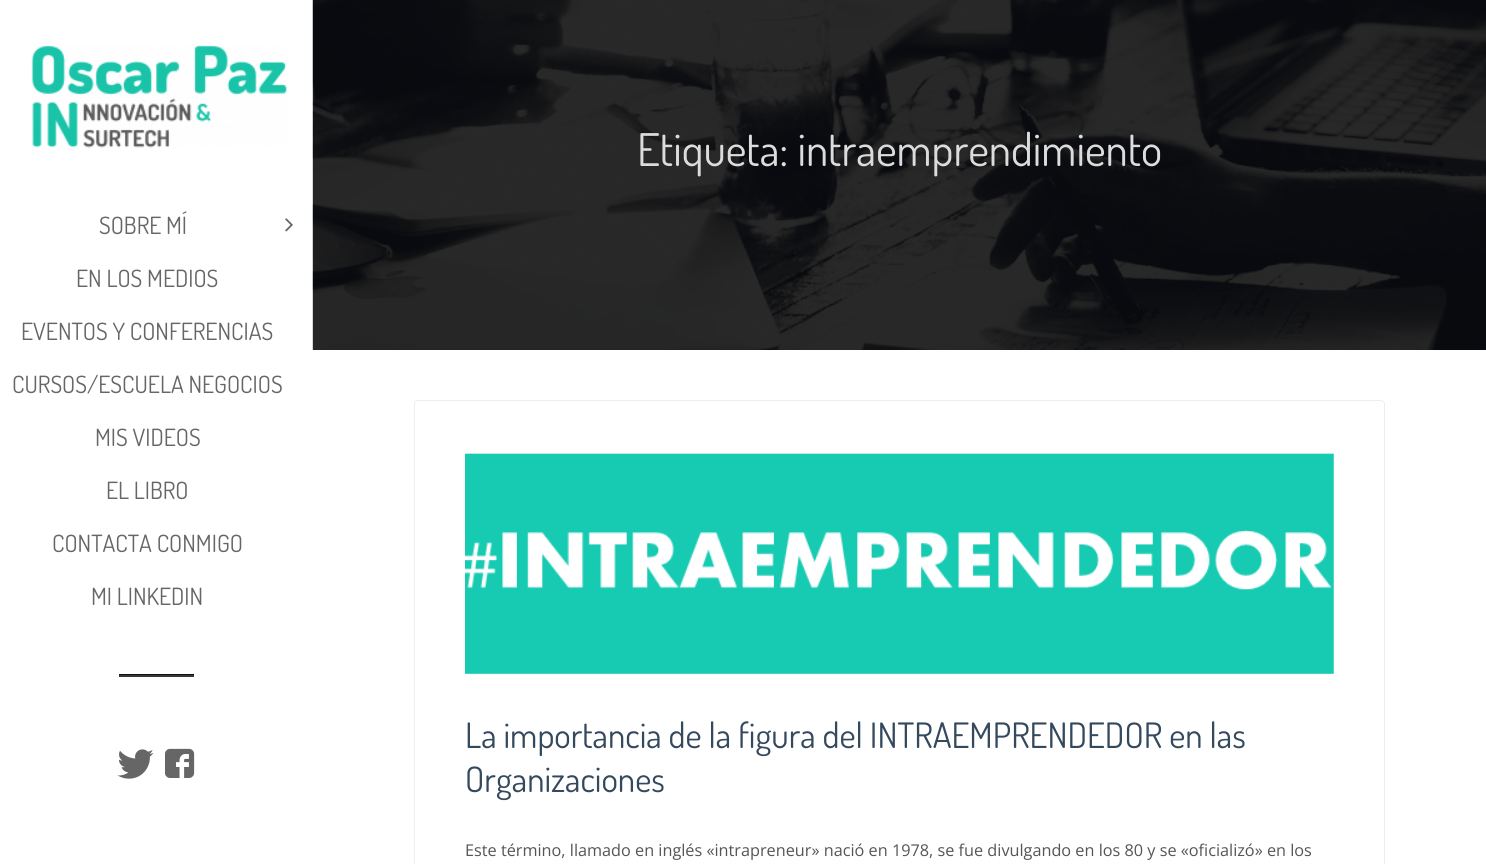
#include <cairo.h>
#include <math.h>
#include <stddef.h>


static void rgb(cairo_t *cr, int r, int g, int b)
{
	cairo_set_source_rgb(cr, r / 255.0, g / 255.0, b / 255.0);
}

static void face(cairo_t *cr, const char *family, double size, int italic, int bold)
{
	cairo_select_font_face(cr, family, italic ? CAIRO_FONT_SLANT_ITALIC : CAIRO_FONT_SLANT_NORMAL,
		bold ? CAIRO_FONT_WEIGHT_BOLD : CAIRO_FONT_WEIGHT_NORMAL);
	cairo_set_font_size(cr, size);
}

static void label(cairo_t *cr, double x, double y, const char *s)
{
	cairo_move_to(cr, x, y);
	cairo_show_text(cr, s);
}

static void rect(cairo_t *cr, double x, double y, double w, double h)
{
	cairo_rectangle(cr, x, y, w, h);
	cairo_fill(cr);
}

static void rrect(cairo_t *cr, double x, double y, double w, double h, double r)
{
	cairo_new_sub_path(cr);
	cairo_arc(cr, x + w - r, y + h - r, r, 0, M_PI / 2);
	cairo_arc(cr, x + r, y + h - r, r, M_PI / 2, M_PI);
	cairo_arc(cr, x + r, y + r, r, M_PI, 1.5 * M_PI);
	cairo_arc(cr, x + w - r, y + r, r, 1.5 * M_PI, 2 * M_PI);
	cairo_close_path(cr);
}

static void image(cairo_t *cr, const char *path, double x, double y, double w, double h)
{
	cairo_surface_t *image = cairo_image_surface_create_from_png(path);
	cairo_save(cr);
	cairo_set_source_surface(cr, image, x, y);
	cairo_rectangle(cr, x, y, w, h);
	cairo_fill(cr);
	cairo_restore(cr);
	cairo_surface_destroy(image);
}

static void draw(cairo_t *cr) {
	rgb(cr, 255, 255, 255);
	cairo_paint(cr);
	image(cr, "image0.png", 31, 45, 257, 103);
	face(cr, "Dosis", 23.75, 0, 0);
	rgb(cr, 102, 102, 102);
	label(cr, 99, 234, "SOBRE MÍ");
	image(cr, "image1.png", 285, 218, 8, 14);
	label(cr, 76, 287, "EN LOS MEDIOS");
	label(cr, 21, 340, "EVENTOS Y CONFERENCIAS");
	label(cr, 12, 393, "CURSOS/ESCUELA NEGOCIOS");
	label(cr, 95, 446, "MIS VIDEOS");
	label(cr, 106, 499, "EL LIBRO");
	label(cr, 52, 552, "CONTACTA CONMIGO");
	label(cr, 91, 605, "MI LINKEDIN");
	rgb(cr, 54, 54, 54);
	rect(cr, 119, 675, 75, 2);
	rgb(cr, 16, 16, 16);
	rect(cr, 119, 674, 75, 1);
	image(cr, "image2.png", 312, 0, 1174, 350);
	face(cr, "Dosis", 45, 0, 0);
	rgb(cr, 220, 220, 220);
	label(cr, 637, 166, "Etiqueta: intraemprendimiento");
	rrect(cr, 414.5, 400.5, 970, 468, 3.5);
	rgb(cr, 238, 238, 238);
	cairo_set_line_width(cr, 1);
	cairo_stroke(cr);
	rgb(cr, 249, 249, 249);
	rect(cr, 465, 451, 869, 225);
	image(cr, "image3.png", 465, 451, 869, 225);
	face(cr, "Dosis", 35, 0, 0);
	rgb(cr, 52, 73, 94);
	label(cr, 465, 748, "La importancia de la figura del INTRAEMPRENDEDOR en las");
	label(cr, 465, 792, "Organizaciones");
	face(cr, "Open Sans", 16.25, 0, 0);
	rgb(cr, 85, 85, 85);
	label(cr, 465, 856, "Este término, llamado en inglés «intrapreneur» nació en 1978, se fue divulgando en los 80 y se «oficializó» en los");
	image(cr, "image4.png", 117, 749, 37, 30);
	face(cr, "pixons", 30, 0, 0);
	rgb(cr, 102, 102, 102);
	label(cr, 165, 777, "1");
}

int main(void) {
	cairo_surface_t *surface = cairo_image_surface_create(CAIRO_FORMAT_RGB24, 1486, 864);
	cairo_t *cr = cairo_create(surface);
	cairo_font_options_t *options = cairo_font_options_create();
	cairo_font_options_set_hint_metrics(options, CAIRO_HINT_METRICS_OFF);
	cairo_font_options_set_hint_style(options, CAIRO_HINT_STYLE_NONE);
	cairo_set_font_options(cr, options);
	cairo_set_miter_limit(cr, 4);
	draw(cr);
	cairo_surface_write_to_png(surface, "render.png");
	cairo_font_options_destroy(options);
	cairo_destroy(cr);
	cairo_surface_destroy(surface);
	return 0;
}
